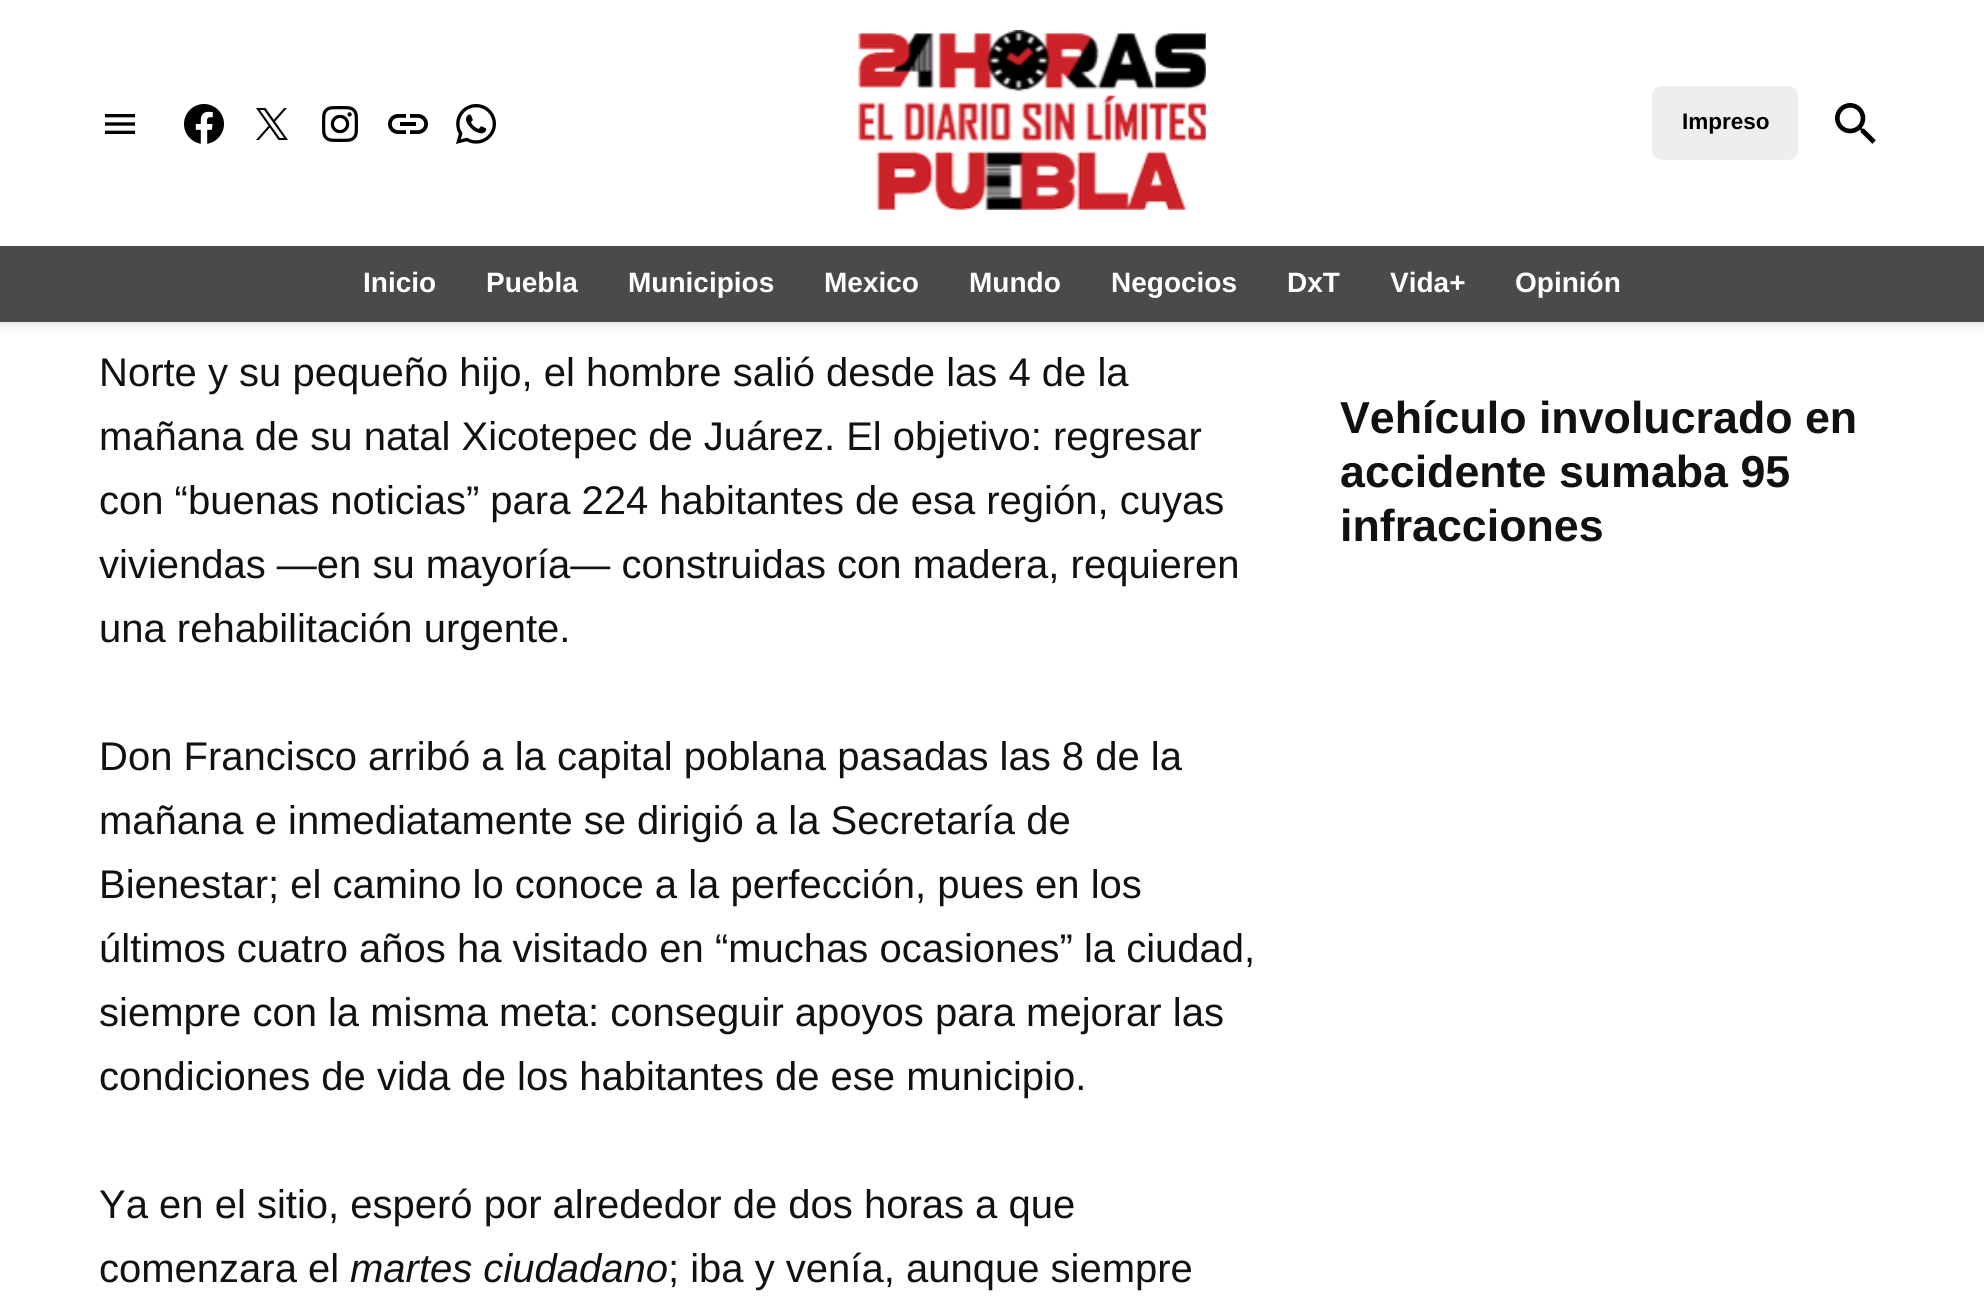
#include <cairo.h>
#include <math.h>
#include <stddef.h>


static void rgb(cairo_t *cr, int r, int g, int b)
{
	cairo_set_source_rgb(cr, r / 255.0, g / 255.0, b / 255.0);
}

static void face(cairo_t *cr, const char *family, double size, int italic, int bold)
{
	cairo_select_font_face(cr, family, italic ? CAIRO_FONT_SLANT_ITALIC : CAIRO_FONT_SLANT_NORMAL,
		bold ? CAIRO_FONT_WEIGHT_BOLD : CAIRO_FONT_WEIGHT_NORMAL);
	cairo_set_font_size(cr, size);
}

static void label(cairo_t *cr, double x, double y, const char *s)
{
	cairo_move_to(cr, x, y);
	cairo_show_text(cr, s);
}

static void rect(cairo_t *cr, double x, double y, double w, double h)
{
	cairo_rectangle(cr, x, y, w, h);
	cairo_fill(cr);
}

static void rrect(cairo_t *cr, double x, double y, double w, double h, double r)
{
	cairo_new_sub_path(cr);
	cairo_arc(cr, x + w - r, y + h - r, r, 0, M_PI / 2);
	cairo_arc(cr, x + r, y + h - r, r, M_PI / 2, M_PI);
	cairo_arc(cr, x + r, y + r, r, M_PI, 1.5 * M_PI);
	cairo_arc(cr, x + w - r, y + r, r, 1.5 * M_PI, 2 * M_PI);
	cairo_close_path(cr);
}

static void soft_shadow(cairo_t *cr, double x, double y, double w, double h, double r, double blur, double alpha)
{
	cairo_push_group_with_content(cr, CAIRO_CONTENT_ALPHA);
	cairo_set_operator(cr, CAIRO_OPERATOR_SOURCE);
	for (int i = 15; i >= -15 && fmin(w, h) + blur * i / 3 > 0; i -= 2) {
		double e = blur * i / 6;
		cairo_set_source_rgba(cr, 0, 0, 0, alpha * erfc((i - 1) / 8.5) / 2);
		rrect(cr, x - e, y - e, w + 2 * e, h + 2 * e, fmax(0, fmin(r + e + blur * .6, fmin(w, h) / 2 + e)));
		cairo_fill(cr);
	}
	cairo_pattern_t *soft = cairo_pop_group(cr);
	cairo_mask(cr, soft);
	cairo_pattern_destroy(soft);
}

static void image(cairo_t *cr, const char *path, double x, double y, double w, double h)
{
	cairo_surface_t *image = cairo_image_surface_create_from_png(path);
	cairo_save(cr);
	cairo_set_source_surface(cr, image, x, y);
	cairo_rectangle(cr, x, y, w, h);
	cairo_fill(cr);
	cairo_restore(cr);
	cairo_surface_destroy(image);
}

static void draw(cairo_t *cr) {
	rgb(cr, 255, 255, 255);
	cairo_paint(cr);
	rgb(cr, 0, 0, 0);
	soft_shadow(cr, 0, 4, 1984, 322, 0, 5, 0.1);
	rgb(cr, 255, 255, 255);
	rect(cr, 0, 0, 1984, 246);
	image(cr, "image0.png", 105, 114, 30, 20);
	image(cr, "image1.png", 184, 104, 40, 40);
	image(cr, "image2.png", 256, 108, 32, 32);
	image(cr, "image3.png", 322, 106, 36, 36);
	image(cr, "image4.png", 388, 114, 40, 20);
	image(cr, "image5.png", 456, 104, 40, 40);
	image(cr, "image6.png", 858, 30, 348, 180);
	rgb(cr, 238, 238, 238);
	rrect(cr, 1652, 86, 146, 74, 10);
	cairo_fill(cr);
	face(cr, "Liberation Sans", 22.5, 0, 1);
	rgb(cr, 0, 0, 0);
	label(cr, 1682, 129, "Impreso");
	image(cr, "image7.png", 1835, 103, 41, 41);
	rgb(cr, 74, 74, 74);
	rect(cr, 0, 246, 1984, 76);
	face(cr, "Liberation Sans", 28, 0, 1);
	rgb(cr, 255, 255, 255);
	label(cr, 363, 292, "Inicio");
	label(cr, 486, 292, "Puebla");
	label(cr, 628, 292, "Municipios");
	label(cr, 824, 292, "Mexico");
	label(cr, 969, 292, "Mundo");
	label(cr, 1111, 292, "Negocios");
	label(cr, 1287, 292, "DxT");
	label(cr, 1390, 292, "Vida+");
	label(cr, 1515, 292, "Opinión");
	face(cr, "Liberation Sans", 40, 0, 0);
	rgb(cr, 17, 17, 17);
	label(cr, 99, 386, "Norte y su pequeño hijo, el hombre salió desde las 4 de la");
	label(cr, 99, 450, "mañana de su natal Xicotepec de Juárez. El objetivo: regresar");
	label(cr, 99, 514, "con “buenas noticias” para 224 habitantes de esa región, cuyas");
	label(cr, 99, 578, "viviendas —en su mayoría— construidas con madera, requieren");
	label(cr, 99, 642, "una rehabilitación urgente.");
	label(cr, 99, 770, "Don Francisco arribó a la capital poblana pasadas las 8 de la");
	label(cr, 99, 834, "mañana e inmediatamente se dirigió a la Secretaría de");
	label(cr, 99, 898, "Bienestar; el camino lo conoce a la perfección, pues en los");
	label(cr, 99, 962, "últimos cuatro años ha visitado en “muchas ocasiones” la ciudad,");
	label(cr, 99, 1026, "siempre con la misma meta: conseguir apoyos para mejorar las");
	label(cr, 99, 1090, "condiciones de vida de los habitantes de ese municipio.");
	label(cr, 99, 1218, "Ya en el sitio, esperó por alrededor de dos horas a que");
	label(cr, 99, 1282, "comenzara el");
	face(cr, "Liberation Sans", 40, 1, 0);
	label(cr, 350, 1282, "martes ciudadano");
	face(cr, "Liberation Sans", 40, 0, 0);
	label(cr, 668, 1282, "; iba y venía, aunque siempre");
	face(cr, "Liberation Sans", 44.75, 0, 1);
	label(cr, 1340, 433, "Vehículo involucrado en");
	label(cr, 1340, 487, "accidente sumaba 95");
	label(cr, 1340, 541, "infracciones");
}

int main(void) {
	cairo_surface_t *surface = cairo_image_surface_create(CAIRO_FORMAT_RGB24, 1984, 1311);
	cairo_t *cr = cairo_create(surface);
	cairo_font_options_t *options = cairo_font_options_create();
	cairo_font_options_set_hint_metrics(options, CAIRO_HINT_METRICS_OFF);
	cairo_font_options_set_hint_style(options, CAIRO_HINT_STYLE_NONE);
	cairo_set_font_options(cr, options);
	cairo_set_miter_limit(cr, 4);
	draw(cr);
	cairo_surface_write_to_png(surface, "render.png");
	cairo_font_options_destroy(options);
	cairo_destroy(cr);
	cairo_surface_destroy(surface);
	return 0;
}
